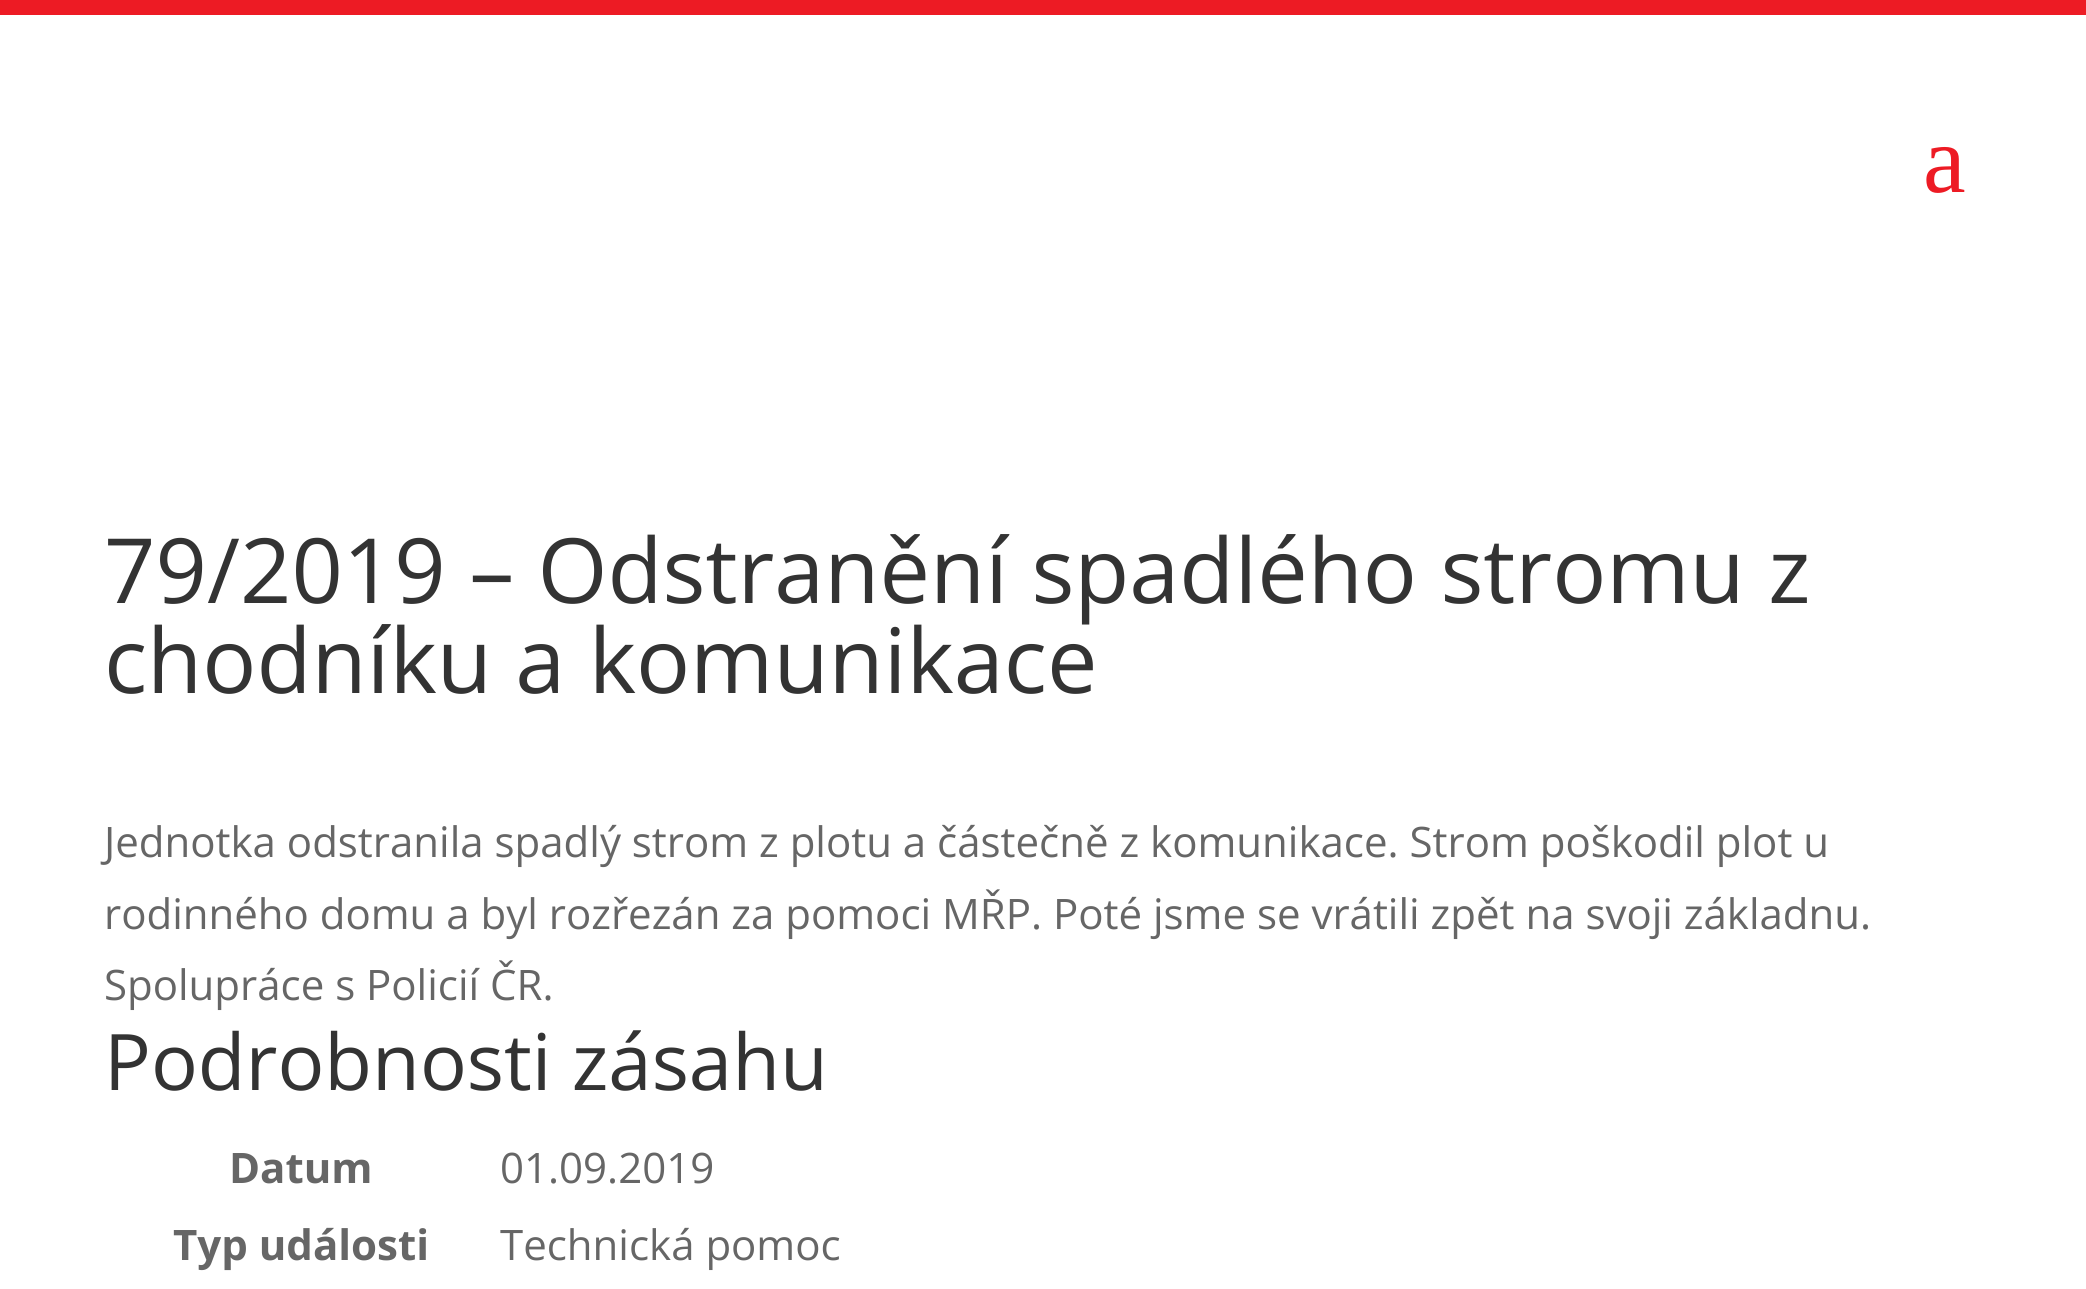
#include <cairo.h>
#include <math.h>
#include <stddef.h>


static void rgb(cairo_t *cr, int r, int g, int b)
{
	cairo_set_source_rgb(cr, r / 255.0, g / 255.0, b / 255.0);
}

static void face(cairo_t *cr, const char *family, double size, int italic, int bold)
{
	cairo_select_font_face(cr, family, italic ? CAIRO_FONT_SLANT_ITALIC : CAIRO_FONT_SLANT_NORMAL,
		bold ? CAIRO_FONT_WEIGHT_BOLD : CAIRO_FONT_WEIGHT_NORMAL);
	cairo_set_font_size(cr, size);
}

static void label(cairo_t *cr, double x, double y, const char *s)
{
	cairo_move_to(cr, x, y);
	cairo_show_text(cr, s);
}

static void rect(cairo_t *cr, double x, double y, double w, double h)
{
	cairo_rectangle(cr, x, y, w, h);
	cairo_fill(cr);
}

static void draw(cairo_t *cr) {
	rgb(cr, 255, 255, 255);
	cairo_paint(cr);
	rgb(cr, 237, 27, 36);
	rect(cr, 0, 0, 2086, 15);
	face(cr, "Liberation Serif", 96, 0, 0);
	label(cr, 1923, 192, "a");
	face(cr, "Open Sans", 90, 0, 0);
	rgb(cr, 51, 51, 51);
	label(cr, 104, 603, "79/2019 – Odstranění spadlého stromu z");
	label(cr, 104, 693, "chodníku a komunikace");
	face(cr, "Open Sans", 42, 0, 0);
	rgb(cr, 102, 102, 102);
	label(cr, 104, 857, "Jednotka odstranila spadlý strom z plotu a částečně z komunikace. Strom poškodil plot u");
	label(cr, 104, 929, "rodinného domu a byl rozřezán za pomoci MŘP. Poté jsme se vrátili zpět na svoji základnu.");
	label(cr, 104, 1000, "Spolupráce s Policií ČR.");
	face(cr, "Open Sans", 78, 0, 0);
	rgb(cr, 51, 51, 51);
	label(cr, 104, 1090, "Podrobnosti zásahu");
	face(cr, "Open Sans", 42, 0, 1);
	rgb(cr, 102, 102, 102);
	label(cr, 229, 1183, "Datum");
	face(cr, "Open Sans", 42, 0, 0);
	label(cr, 500, 1183, "01.09.2019");
	face(cr, "Open Sans", 42, 0, 1);
	label(cr, 173, 1260, "Typ události");
	face(cr, "Open Sans", 42, 0, 0);
	label(cr, 500, 1260, "Technická pomoc");
}

int main(void) {
	cairo_surface_t *surface = cairo_image_surface_create(CAIRO_FORMAT_RGB24, 2086, 1289);
	cairo_t *cr = cairo_create(surface);
	cairo_font_options_t *options = cairo_font_options_create();
	cairo_font_options_set_hint_metrics(options, CAIRO_HINT_METRICS_OFF);
	cairo_font_options_set_hint_style(options, CAIRO_HINT_STYLE_NONE);
	cairo_set_font_options(cr, options);
	cairo_set_miter_limit(cr, 4);
	draw(cr);
	cairo_surface_write_to_png(surface, "render.png");
	cairo_font_options_destroy(options);
	cairo_destroy(cr);
	cairo_surface_destroy(surface);
	return 0;
}
